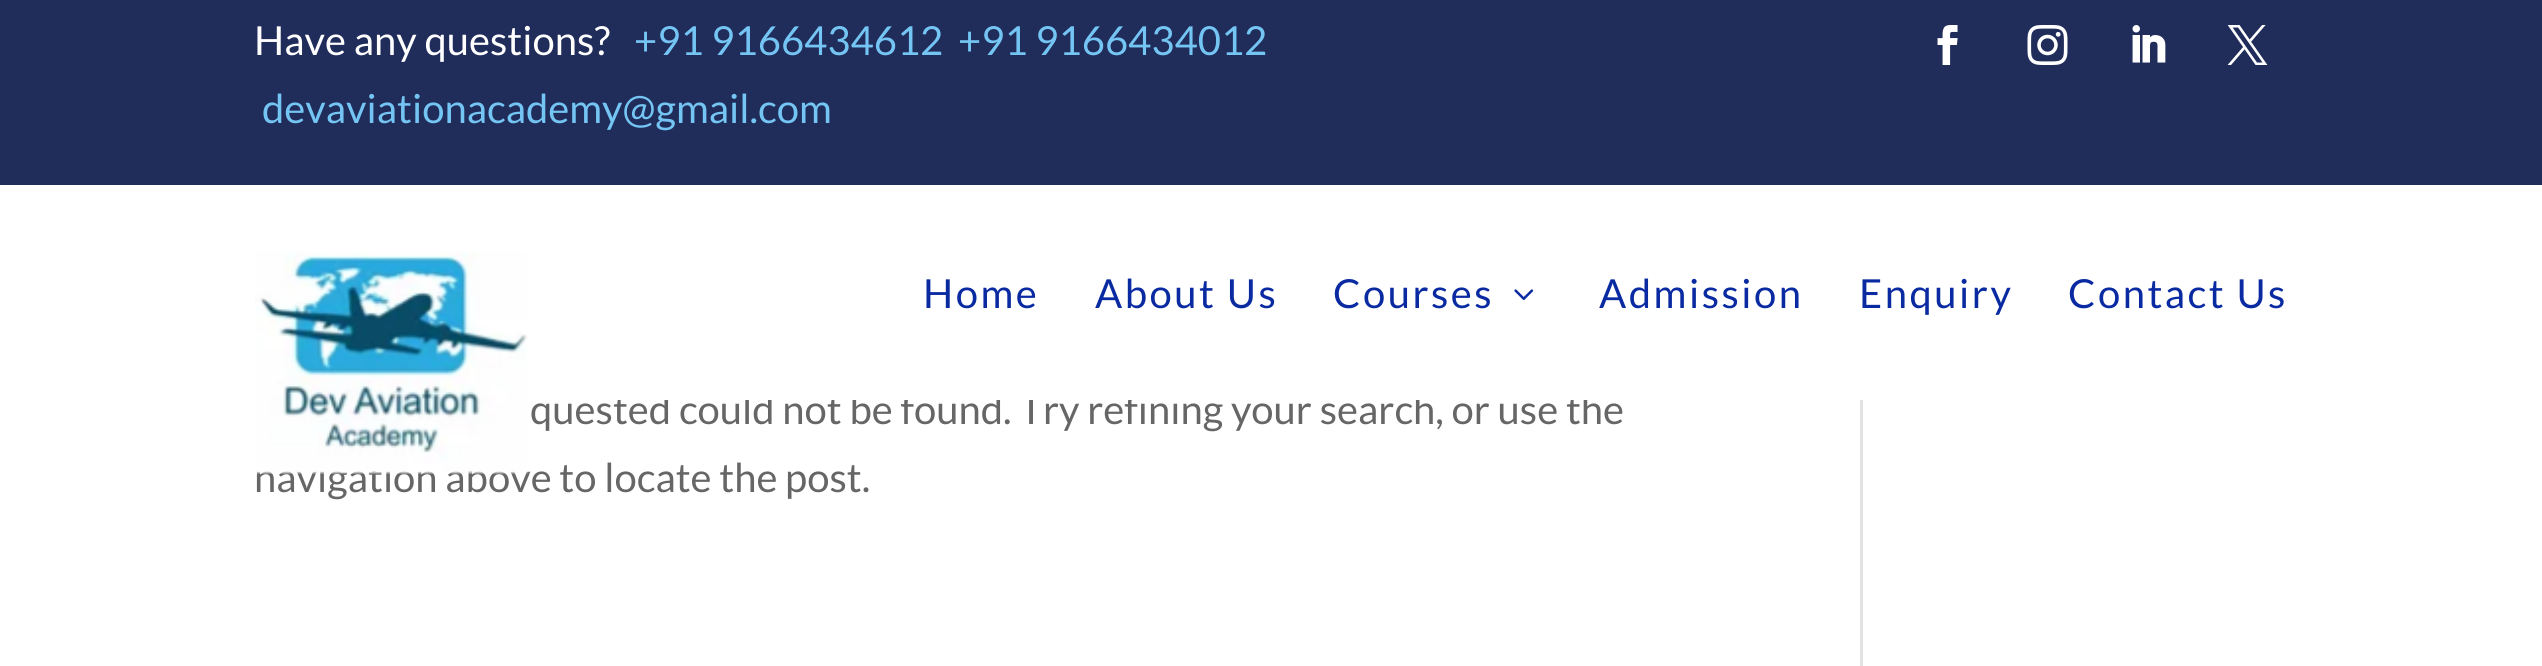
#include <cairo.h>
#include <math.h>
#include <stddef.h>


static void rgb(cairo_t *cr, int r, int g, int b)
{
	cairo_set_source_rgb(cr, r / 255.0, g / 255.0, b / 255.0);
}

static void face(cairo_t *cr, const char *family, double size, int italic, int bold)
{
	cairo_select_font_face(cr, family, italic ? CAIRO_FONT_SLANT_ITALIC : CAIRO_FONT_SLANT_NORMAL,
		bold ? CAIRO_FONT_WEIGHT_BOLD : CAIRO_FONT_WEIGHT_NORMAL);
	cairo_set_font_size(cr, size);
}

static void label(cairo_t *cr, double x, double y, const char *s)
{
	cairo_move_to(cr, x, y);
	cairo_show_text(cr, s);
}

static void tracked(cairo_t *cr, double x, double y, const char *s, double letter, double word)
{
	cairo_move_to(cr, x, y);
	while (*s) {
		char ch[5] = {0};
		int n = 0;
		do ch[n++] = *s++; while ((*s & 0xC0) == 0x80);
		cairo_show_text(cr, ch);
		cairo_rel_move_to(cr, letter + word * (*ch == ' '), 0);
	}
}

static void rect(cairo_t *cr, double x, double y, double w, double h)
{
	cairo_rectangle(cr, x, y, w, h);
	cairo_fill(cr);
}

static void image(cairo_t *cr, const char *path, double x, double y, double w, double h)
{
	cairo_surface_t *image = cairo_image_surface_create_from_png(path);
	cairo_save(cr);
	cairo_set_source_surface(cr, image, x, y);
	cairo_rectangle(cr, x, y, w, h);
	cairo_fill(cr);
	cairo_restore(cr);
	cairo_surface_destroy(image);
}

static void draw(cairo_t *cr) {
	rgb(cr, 255, 255, 255);
	cairo_paint(cr);
	rgb(cr, 32, 44, 90);
	rect(cr, 0, 0, 2542, 185);
	face(cr, "Lato", 40, 0, 0);
	rgb(cr, 255, 255, 255);
	label(cr, 254, 55, "Have any questions?");
	rgb(cr, 116, 197, 243);
	label(cr, 634, 55, "+91 9166434612");
	label(cr, 958, 55, "+91 9166434012");
	label(cr, 262, 123, "devaviationacademy@gmail.com");
	image(cr, "image0.png", 1937, 25, 21, 40);
	image(cr, "image1.png", 2027, 25, 41, 40);
	image(cr, "image2.png", 2132, 25, 34, 38);
	image(cr, "image3.png", 2227, 25, 41, 40);
	rgb(cr, 102, 102, 102);
	label(cr, 530, 424, "quested could not be found. Try refining your search, or use the");
	rgb(cr, 255, 255, 255);
	rect(cr, 617, 394, 971, 6);
	rgb(cr, 102, 102, 102);
	label(cr, 254, 492, "navigation above to locate the post.");
	image(cr, "image4.png", 255, 251, 275, 223);
	rgb(cr, 9, 42, 161);
	tracked(cr, 923, 308, "Home", 2.5, 0);
	tracked(cr, 1095, 308, "About Us", 2.5, 0);
	tracked(cr, 1333, 308, "Courses", 2.5, 0);
	image(cr, "image5.png", 1514, 289, 20, 11);
	tracked(cr, 1599, 308, "Admission", 2.5, 0);
	tracked(cr, 1859, 308, "Enquiry", 2.5, 0);
	tracked(cr, 2068, 308, "Contact Us", 2.5, 0);
	rgb(cr, 226, 226, 226);
	rect(cr, 1860, 400, 3, 266);
}

int main(void) {
	cairo_surface_t *surface = cairo_image_surface_create(CAIRO_FORMAT_RGB24, 2542, 666);
	cairo_t *cr = cairo_create(surface);
	cairo_font_options_t *options = cairo_font_options_create();
	cairo_font_options_set_hint_metrics(options, CAIRO_HINT_METRICS_OFF);
	cairo_font_options_set_hint_style(options, CAIRO_HINT_STYLE_NONE);
	cairo_set_font_options(cr, options);
	cairo_set_miter_limit(cr, 4);
	draw(cr);
	cairo_surface_write_to_png(surface, "render.png");
	cairo_font_options_destroy(options);
	cairo_destroy(cr);
	cairo_surface_destroy(surface);
	return 0;
}
